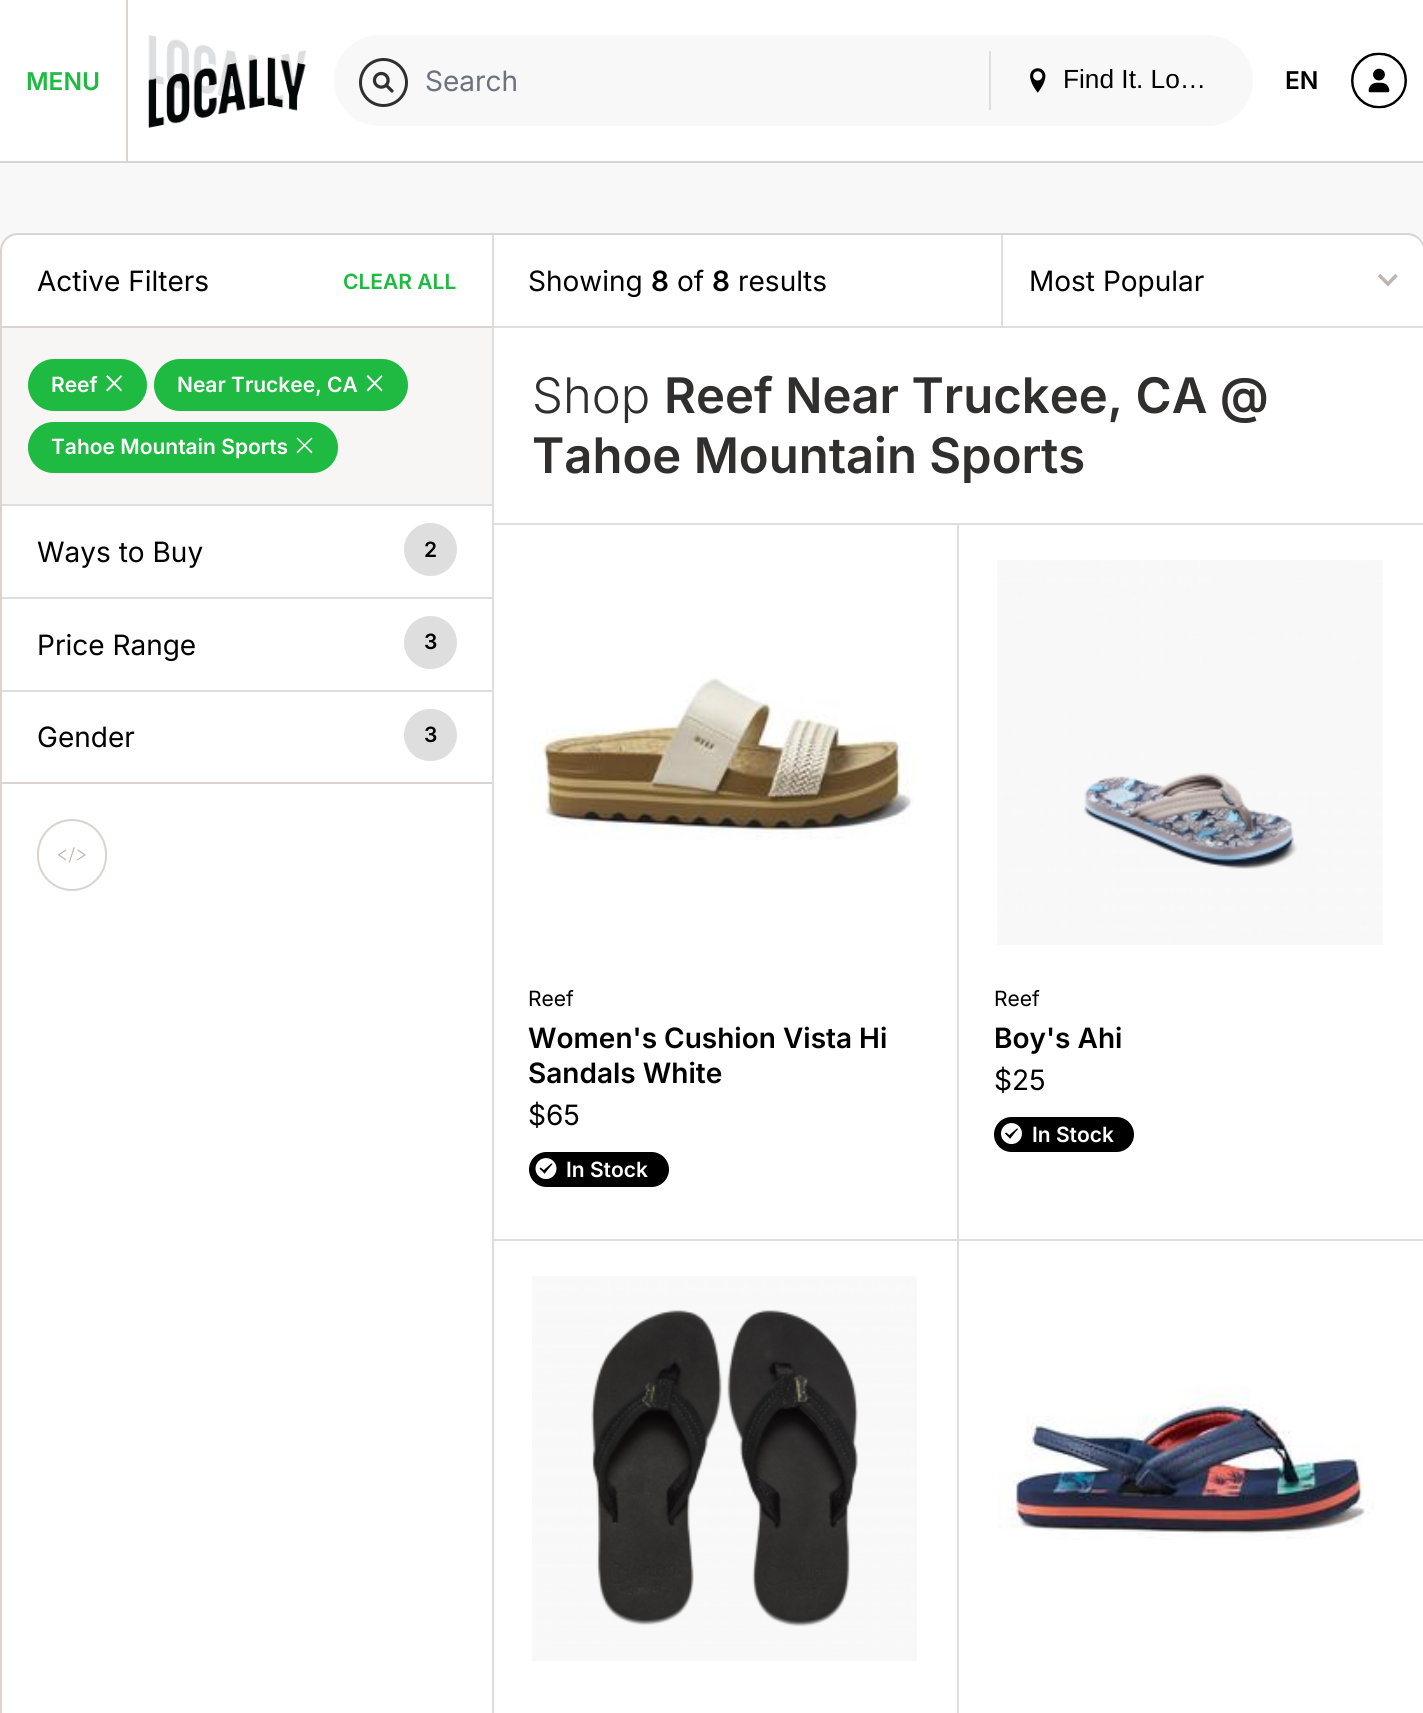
#include <cairo.h>
#include <math.h>
#include <stddef.h>


static void rgb(cairo_t *cr, int r, int g, int b)
{
	cairo_set_source_rgb(cr, r / 255.0, g / 255.0, b / 255.0);
}

static void face(cairo_t *cr, const char *family, double size, int italic, int bold)
{
	cairo_select_font_face(cr, family, italic ? CAIRO_FONT_SLANT_ITALIC : CAIRO_FONT_SLANT_NORMAL,
		bold ? CAIRO_FONT_WEIGHT_BOLD : CAIRO_FONT_WEIGHT_NORMAL);
	cairo_set_font_size(cr, size);
}

static void label(cairo_t *cr, double x, double y, const char *s)
{
	cairo_move_to(cr, x, y);
	cairo_show_text(cr, s);
}

static void rect(cairo_t *cr, double x, double y, double w, double h)
{
	cairo_rectangle(cr, x, y, w, h);
	cairo_fill(cr);
}

static void rrect(cairo_t *cr, double x, double y, double w, double h, double r)
{
	cairo_new_sub_path(cr);
	cairo_arc(cr, x + w - r, y + h - r, r, 0, M_PI / 2);
	cairo_arc(cr, x + r, y + h - r, r, M_PI / 2, M_PI);
	cairo_arc(cr, x + r, y + r, r, M_PI, 1.5 * M_PI);
	cairo_arc(cr, x + w - r, y + r, r, 1.5 * M_PI, 2 * M_PI);
	cairo_close_path(cr);
}

static void image(cairo_t *cr, const char *path, double x, double y, double w, double h)
{
	cairo_surface_t *image = cairo_image_surface_create_from_png(path);
	cairo_save(cr);
	cairo_set_source_surface(cr, image, x, y);
	cairo_rectangle(cr, x, y, w, h);
	cairo_fill(cr);
	cairo_restore(cr);
	cairo_surface_destroy(image);
}

static void draw(cairo_t *cr) {
	rgb(cr, 248, 248, 248);
	cairo_paint(cr);
	rgb(cr, 217, 212, 207);
	rect(cr, 0, 161, 1423, 2);
	rgb(cr, 255, 255, 255);
	rect(cr, 0, 0, 1423, 161);
	image(cr, "image0.png", 148, 35, 159, 93);
	rgb(cr, 248, 248, 248);
	rrect(cr, 334, 35, 919, 91, 45.5);
	cairo_fill(cr);
	rgb(cr, 217, 212, 207);
	rect(cr, 126, 0, 2, 161);
	face(cr, "Inter SemiBold", 24.5, 0, 0);
	rgb(cr, 30, 186, 66);
	label(cr, 26, 90, "MENU");
	image(cr, "image1.png", 1030, 68, 16, 25);
	face(cr, "Liberation Sans", 26.25, 0, 0);
	rgb(cr, 0, 0, 0);
	label(cr, 1063, 88, "Find It. Lo…");
	image(cr, "image2.png", 359, 58, 49, 49);
	face(cr, "Inter", 28, 0, 0);
	rgb(cr, 107, 114, 128);
	label(cr, 425, 91, "Search");
	rgb(cr, 222, 222, 222);
	rect(cr, 989, 51, 2, 59);
	face(cr, "Inter SemiBold", 24.5, 0, 0);
	rgb(cr, 0, 0, 0);
	label(cr, 1285, 89, "EN");
	image(cr, "image3.png", 1351, 52, 56, 57);
	rgb(cr, 255, 255, 255);
	rrect(cr, 1, 234, 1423, 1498, 17);
	cairo_fill_preserve(cr);
	rgb(cr, 217, 212, 207);
	cairo_stroke(cr);
	rgb(cr, 222, 222, 222);
	rect(cr, 2, 504, 490, 2);
	rgb(cr, 217, 212, 207);
	rect(cr, 2, 326, 490, 2);
	face(cr, "Inter", 28, 0, 0);
	rgb(cr, 0, 0, 0);
	label(cr, 37, 291, "Active Filters");
	face(cr, "Inter SemiBold", 21, 0, 0);
	rgb(cr, 30, 186, 66);
	label(cr, 343, 289, "CLEAR ALL");
	rgb(cr, 247, 246, 245);
	rect(cr, 2, 328, 490, 176);
	rgb(cr, 30, 186, 66);
	rrect(cr, 28, 359, 119, 52, 26);
	cairo_fill(cr);
	rgb(cr, 255, 255, 255);
	label(cr, 51, 392, "Reef");
	cairo_new_path(cr);
	cairo_move_to(cr, 106, 376.5);
	cairo_line_to(cr, 107.5, 375);
	cairo_line_to(cr, 122, 390);
	cairo_line_to(cr, 121, 391.5);
	cairo_close_path(cr);
	cairo_fill(cr);
	cairo_new_path(cr);
	cairo_move_to(cr, 121, 375);
	cairo_line_to(cr, 122, 376.5);
	cairo_line_to(cr, 107.5, 391.5);
	cairo_line_to(cr, 106, 390);
	cairo_close_path(cr);
	cairo_fill(cr);
	rgb(cr, 30, 186, 66);
	rrect(cr, 154, 359, 254, 52, 26);
	cairo_fill(cr);
	rgb(cr, 255, 255, 255);
	label(cr, 177, 392, "Near Truckee, CA");
	cairo_new_path(cr);
	cairo_move_to(cr, 366.5, 376.5);
	cairo_line_to(cr, 368, 375);
	cairo_line_to(cr, 382.5, 390);
	cairo_line_to(cr, 381.5, 391.5);
	cairo_close_path(cr);
	cairo_fill(cr);
	cairo_new_path(cr);
	cairo_move_to(cr, 381.5, 375);
	cairo_line_to(cr, 382.5, 376.5);
	cairo_line_to(cr, 368, 391.5);
	cairo_line_to(cr, 366.5, 390);
	cairo_close_path(cr);
	cairo_fill(cr);
	rgb(cr, 30, 186, 66);
	rrect(cr, 28, 422, 310, 51, 25.5);
	cairo_fill(cr);
	rgb(cr, 255, 255, 255);
	label(cr, 51, 454, "Tahoe Mountain Sports");
	cairo_new_path(cr);
	cairo_move_to(cr, 296.5, 438.5);
	cairo_line_to(cr, 297.5, 437.5);
	cairo_line_to(cr, 312.5, 452);
	cairo_line_to(cr, 311.5, 453.5);
	cairo_close_path(cr);
	cairo_fill(cr);
	cairo_new_path(cr);
	cairo_move_to(cr, 311.5, 437.5);
	cairo_line_to(cr, 312.5, 438.5);
	cairo_line_to(cr, 297.5, 453.5);
	cairo_line_to(cr, 296.5, 452);
	cairo_close_path(cr);
	cairo_fill(cr);
	face(cr, "Inter", 28, 0, 0);
	rgb(cr, 0, 0, 0);
	label(cr, 37, 562, "Ways to Buy");
	rgb(cr, 222, 222, 222);
	cairo_new_path(cr);
	cairo_arc(cr, 430.5, 549.5, 26.5, 0, 2 * M_PI);
	cairo_fill(cr);
	face(cr, "Inter SemiBold", 21, 0, 0);
	rgb(cr, 0, 0, 0);
	label(cr, 424, 557, "2");
	rgb(cr, 222, 222, 222);
	rect(cr, 2, 597, 490, 2);
	face(cr, "Inter", 28, 0, 0);
	rgb(cr, 0, 0, 0);
	label(cr, 37, 655, "Price Range");
	rgb(cr, 222, 222, 222);
	cairo_new_path(cr);
	cairo_arc(cr, 430.5, 642.5, 26.5, 0, 2 * M_PI);
	cairo_fill(cr);
	face(cr, "Inter SemiBold", 21, 0, 0);
	rgb(cr, 0, 0, 0);
	label(cr, 424, 649, "3");
	rgb(cr, 222, 222, 222);
	rect(cr, 2, 690, 490, 2);
	rgb(cr, 217, 212, 207);
	rect(cr, 2, 782, 490, 2);
	face(cr, "Inter", 28, 0, 0);
	rgb(cr, 0, 0, 0);
	label(cr, 37, 747, "Gender");
	rgb(cr, 222, 222, 222);
	rrect(cr, 404, 709, 53, 52, 26);
	cairo_fill(cr);
	face(cr, "Inter SemiBold", 21, 0, 0);
	rgb(cr, 0, 0, 0);
	label(cr, 424, 742, "3");
	rrect(cr, 38, 820, 68, 70, 34);
	rgb(cr, 217, 212, 207);
	cairo_stroke(cr);
	image(cr, "image4.png", 58, 847, 28, 16);
	rgb(cr, 222, 222, 222);
	rect(cr, 492, 235, 2, 1478);
	rect(cr, 494, 326, 929, 2);
	rect(cr, 1001, 235, 2, 91);
	face(cr, "Inter", 28, 0, 0);
	rgb(cr, 0, 0, 0);
	label(cr, 528, 291, "Showing");
	face(cr, "Inter SemiBold", 28, 0, 0);
	label(cr, 651, 291, "8");
	face(cr, "Inter", 28, 0, 0);
	label(cr, 677, 291, "of");
	face(cr, "Inter SemiBold", 28, 0, 0);
	label(cr, 712, 291, "8");
	face(cr, "Inter", 28, 0, 0);
	label(cr, 738, 291, "results");
	rgb(cr, 255, 255, 255);
	cairo_new_path(cr);
	cairo_move_to(cr, 1047, 236);
	cairo_line_to(cr, 1409, 236);
	cairo_curve_to(cr, 1416.5, 236, 1423, 242.5, 1423, 250);
	cairo_line_to(cr, 1423, 280);
	cairo_curve_to(cr, 1423, 304.5, 1403.5, 324, 1379, 324);
	cairo_line_to(cr, 1047, 324);
	cairo_curve_to(cr, 1022.5, 324, 1003, 304.5, 1003, 280);
	cairo_curve_to(cr, 1003, 255.5, 1022.5, 236, 1047, 236);
	cairo_close_path(cr);
	cairo_fill(cr);
	cairo_new_path(cr);
	cairo_move_to(cr, 1396.5, 275);
	cairo_line_to(cr, 1388, 284);
	cairo_line_to(cr, 1379, 275);
	rgb(cr, 190, 182, 174);
	cairo_set_line_width(cr, 3.5);
	cairo_stroke(cr);
	rgb(cr, 0, 0, 0);
	label(cr, 1029, 291, "Most Popular");
	rgb(cr, 222, 222, 222);
	rect(cr, 494, 523, 929, 2);
	face(cr, "Inter Light", 49, 0, 0);
	rgb(cr, 49, 46, 46);
	label(cr, 532, 413, "Shop");
	face(cr, "Inter SemiBold", 49, 0, 0);
	label(cr, 664, 413, "Reef Near Truckee, CA @");
	label(cr, 532, 473, "Tahoe Mountain Sports");
	rgb(cr, 222, 222, 222);
	rect(cr, 957, 525, 2, 1188);
	rect(cr, 494, 1239, 929, 2);
	image(cr, "image5.png", 532, 676, 385, 164);
	face(cr, "Inter", 21, 0, 0);
	rgb(cr, 0, 0, 0);
	label(cr, 528, 1006, "Reef");
	face(cr, "Inter SemiBold", 28, 0, 0);
	label(cr, 528, 1048, "Women's Cushion Vista Hi");
	label(cr, 528, 1083, "Sandals White");
	face(cr, "Inter", 28, 0, 0);
	label(cr, 528, 1125, "$65");
	rrect(cr, 529, 1152, 140, 35, 17.5);
	cairo_fill(cr);
	image(cr, "image6.png", 535, 1158, 22, 21);
	face(cr, "Inter SemiBold", 21, 0, 0);
	rgb(cr, 255, 255, 255);
	label(cr, 566, 1177, "In Stock");
	image(cr, "image7.png", 997, 560, 386, 385);
	face(cr, "Inter", 21, 0, 0);
	rgb(cr, 0, 0, 0);
	label(cr, 994, 1006, "Reef");
	face(cr, "Inter SemiBold", 28, 0, 0);
	label(cr, 994, 1048, "Boy's Ahi");
	face(cr, "Inter", 28, 0, 0);
	label(cr, 994, 1090, "$25");
	rrect(cr, 994, 1117, 140, 35, 17.5);
	cairo_fill(cr);
	image(cr, "image8.png", 1001, 1123, 21, 22);
	face(cr, "Inter SemiBold", 21, 0, 0);
	rgb(cr, 255, 255, 255);
	label(cr, 1032, 1142, "In Stock");
	image(cr, "image9.png", 532, 1276, 385, 385);
	image(cr, "image10.png", 997, 1387, 377, 153);
}

int main(void) {
	cairo_surface_t *surface = cairo_image_surface_create(CAIRO_FORMAT_RGB24, 1423, 1713);
	cairo_t *cr = cairo_create(surface);
	cairo_font_options_t *options = cairo_font_options_create();
	cairo_font_options_set_hint_metrics(options, CAIRO_HINT_METRICS_OFF);
	cairo_font_options_set_hint_style(options, CAIRO_HINT_STYLE_NONE);
	cairo_set_font_options(cr, options);
	cairo_set_miter_limit(cr, 4);
	draw(cr);
	cairo_surface_write_to_png(surface, "render.png");
	cairo_font_options_destroy(options);
	cairo_destroy(cr);
	cairo_surface_destroy(surface);
	return 0;
}
